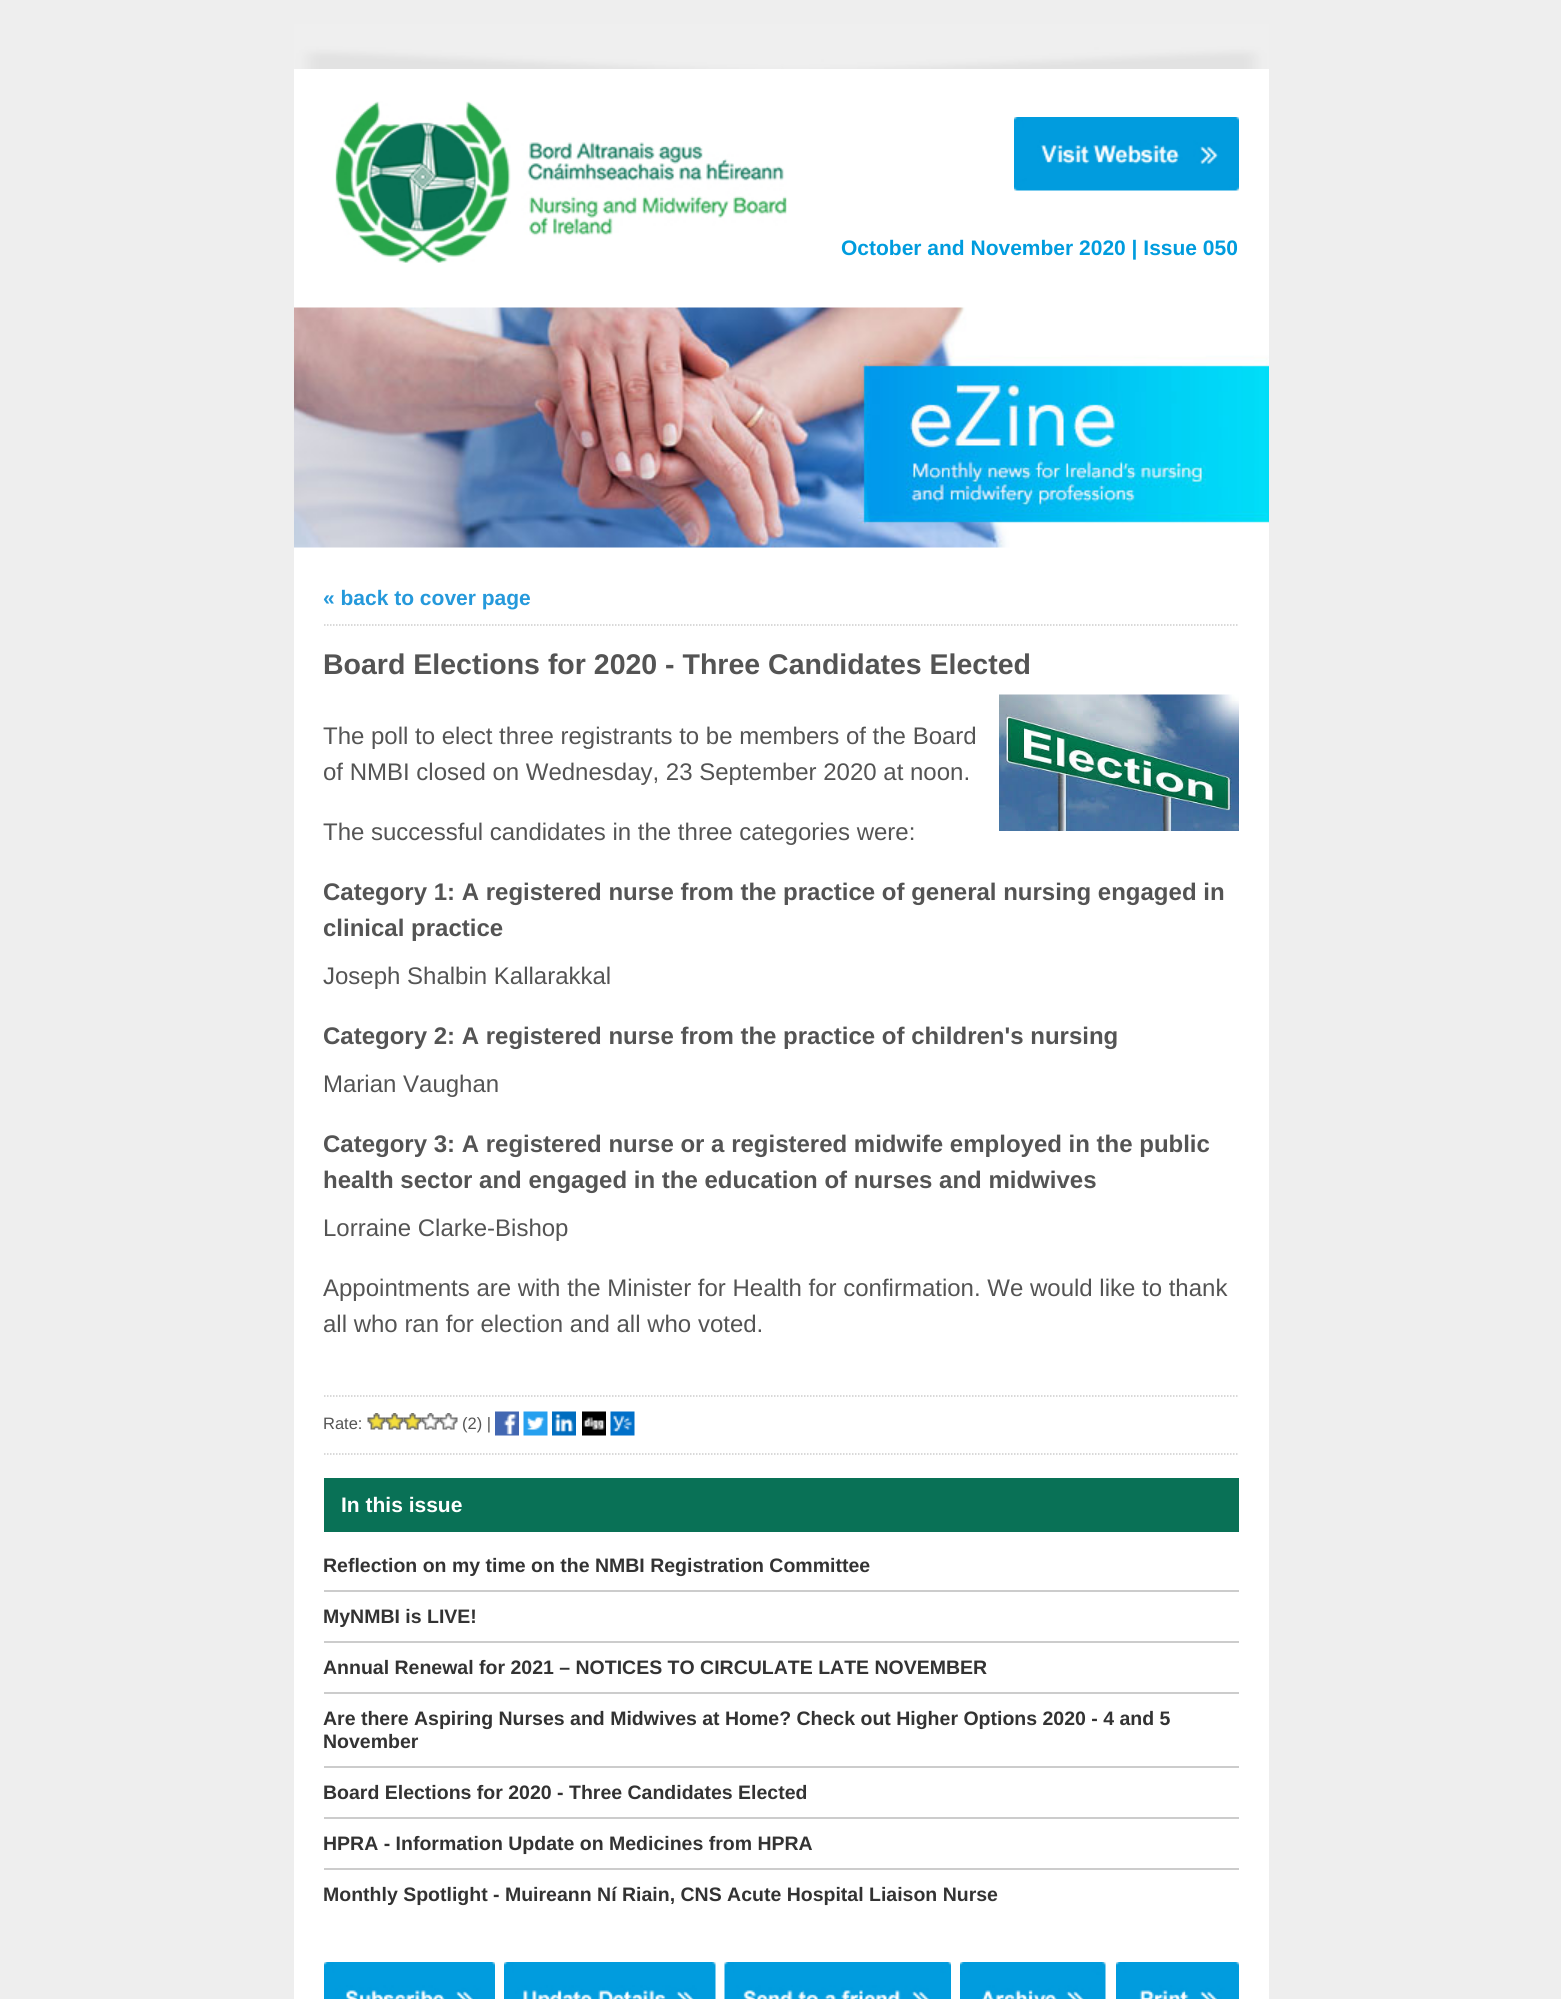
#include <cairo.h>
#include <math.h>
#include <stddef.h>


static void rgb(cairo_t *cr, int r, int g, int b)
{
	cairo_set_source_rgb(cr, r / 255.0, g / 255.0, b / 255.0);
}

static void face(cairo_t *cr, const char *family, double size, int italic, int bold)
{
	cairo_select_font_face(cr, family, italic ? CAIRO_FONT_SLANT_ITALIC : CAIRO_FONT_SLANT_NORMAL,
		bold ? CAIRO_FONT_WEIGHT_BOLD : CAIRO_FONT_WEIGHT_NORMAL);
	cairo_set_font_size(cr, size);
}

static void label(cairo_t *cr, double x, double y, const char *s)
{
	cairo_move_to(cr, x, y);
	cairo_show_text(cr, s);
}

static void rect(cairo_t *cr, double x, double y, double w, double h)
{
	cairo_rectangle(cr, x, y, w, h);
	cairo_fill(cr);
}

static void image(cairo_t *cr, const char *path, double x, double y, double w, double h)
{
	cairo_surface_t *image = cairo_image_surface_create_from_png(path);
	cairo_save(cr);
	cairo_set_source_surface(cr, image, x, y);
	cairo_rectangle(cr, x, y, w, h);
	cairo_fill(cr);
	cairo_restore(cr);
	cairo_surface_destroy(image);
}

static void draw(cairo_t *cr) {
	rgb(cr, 238, 238, 238);
	cairo_paint(cr);
	rgb(cr, 255, 255, 255);
	rect(cr, 294, 69, 975, 1930);
	image(cr, "image0.png", 294, 24, 975, 45);
	image(cr, "image1.png", 335, 101, 452, 162);
	image(cr, "image2.png", 1014, 117, 225, 74);
	face(cr, "Liberation Sans", 21, 0, 1);
	rgb(cr, 0, 156, 222);
	label(cr, 841, 255, "October and November 2020 | Issue 050");
	image(cr, "image3.png", 294, 307, 975, 241);
	cairo_new_path(cr);
	cairo_move_to(cr, 324, 625);
	cairo_line_to(cr, 1239, 625);
	rgb(cr, 204, 204, 204);
	cairo_set_line_width(cr, 1.5);
	cairo_set_dash(cr, (double[]){1.5, 1.5}, 2, 0);
	cairo_stroke(cr);
	rgb(cr, 37, 153, 219);
	label(cr, 323, 605, "« back to cover page");
	face(cr, "Liberation Sans", 28.5, 0, 1);
	rgb(cr, 84, 84, 84);
	label(cr, 323, 674, "Board Elections for 2020 - Three Candidates Elected");
	image(cr, "image4.png", 999, 694, 240, 137);
	face(cr, "Liberation Sans", 24, 0, 0);
	label(cr, 323, 744, "The poll to elect three registrants to be members of the Board");
	label(cr, 323, 780, "of NMBI closed on Wednesday, 23 September 2020 at noon.");
	label(cr, 323, 840, "The successful candidates in the three categories were:");
	face(cr, "Liberation Sans", 24, 0, 1);
	label(cr, 323, 900, "Category 1: A registered nurse from the practice of general nursing engaged in");
	label(cr, 323, 936, "clinical practice");
	face(cr, "Liberation Sans", 24, 0, 0);
	label(cr, 323, 984, "Joseph Shalbin Kallarakkal");
	face(cr, "Liberation Sans", 24, 0, 1);
	label(cr, 323, 1044, "Category 2: A registered nurse from the practice of children's nursing");
	face(cr, "Liberation Sans", 24, 0, 0);
	label(cr, 323, 1092, "Marian Vaughan");
	face(cr, "Liberation Sans", 24, 0, 1);
	label(cr, 323, 1152, "Category 3: A registered nurse or a registered midwife employed in the public");
	label(cr, 323, 1188, "health sector and engaged in the education of nurses and midwives");
	face(cr, "Liberation Sans", 24, 0, 0);
	label(cr, 323, 1236, "Lorraine Clarke-Bishop");
	label(cr, 323, 1296, "Appointments are with the Minister for Health for confirmation. We would like to thank");
	label(cr, 323, 1332, "all who ran for election and all who voted.");
	cairo_new_path(cr);
	cairo_move_to(cr, 324, 1396);
	cairo_line_to(cr, 1239, 1396);
	rgb(cr, 204, 204, 204);
	cairo_stroke(cr);
	cairo_new_path(cr);
	cairo_move_to(cr, 324, 1454);
	cairo_line_to(cr, 1239, 1454);
	cairo_stroke(cr);
	face(cr, "Liberation Sans", 16.5, 0, 0);
	rgb(cr, 84, 84, 84);
	label(cr, 323, 1429, "Rate:");
	image(cr, "image5.png", 367, 1413, 19, 17);
	image(cr, "image6.png", 385, 1413, 19, 17);
	image(cr, "image6.png", 403, 1413, 19, 17);
	image(cr, "image7.png", 421, 1413, 19, 17);
	image(cr, "image8.png", 439, 1413, 19, 17);
	label(cr, 462, 1429, "(2) |");
	image(cr, "image9.png", 495, 1411, 24, 25);
	image(cr, "image10.png", 523, 1411, 25, 25);
	image(cr, "image11.png", 552, 1411, 24, 25);
	image(cr, "image12.png", 582, 1411, 24, 25);
	image(cr, "image13.png", 610, 1411, 25, 25);
	rgb(cr, 9, 113, 86);
	rect(cr, 324, 1478, 915, 54);
	face(cr, "Liberation Sans", 21, 0, 1);
	rgb(cr, 255, 255, 255);
	label(cr, 341, 1512, "In this issue");
	face(cr, "Liberation Sans", 19.5, 0, 1);
	rgb(cr, 51, 51, 51);
	label(cr, 323, 1572, "Reflection on my time on the NMBI Registration Committee");
	rgb(cr, 204, 204, 204);
	rect(cr, 324, 1590, 915, 2);
	rgb(cr, 51, 51, 51);
	label(cr, 323, 1623, "MyNMBI is LIVE!");
	rgb(cr, 204, 204, 204);
	rect(cr, 324, 1641, 915, 2);
	rgb(cr, 51, 51, 51);
	label(cr, 323, 1674, "Annual Renewal for 2021 – NOTICES TO CIRCULATE LATE NOVEMBER");
	rgb(cr, 204, 204, 204);
	rect(cr, 324, 1692, 915, 2);
	rgb(cr, 51, 51, 51);
	label(cr, 323, 1725, "Are there Aspiring Nurses and Midwives at Home? Check out Higher Options 2020 - 4 and 5");
	label(cr, 323, 1748, "November");
	rgb(cr, 204, 204, 204);
	rect(cr, 324, 1766, 915, 2);
	rgb(cr, 51, 51, 51);
	label(cr, 323, 1799, "Board Elections for 2020 - Three Candidates Elected");
	rgb(cr, 204, 204, 204);
	rect(cr, 324, 1817, 915, 2);
	rgb(cr, 51, 51, 51);
	label(cr, 323, 1850, "HPRA - Information Update on Medicines from HPRA");
	rgb(cr, 204, 204, 204);
	rect(cr, 324, 1868, 915, 2);
	rgb(cr, 51, 51, 51);
	label(cr, 323, 1901, "Monthly Spotlight - Muireann Ní Riain, CNS Acute Hospital Liaison Nurse");
	image(cr, "image14.png", 324, 1962, 171, 37);
	image(cr, "image15.png", 504, 1962, 212, 37);
	image(cr, "image16.png", 724, 1962, 227, 37);
	image(cr, "image17.png", 960, 1962, 146, 37);
	image(cr, "image18.png", 1116, 1962, 123, 37);
}

int main(void) {
	cairo_surface_t *surface = cairo_image_surface_create(CAIRO_FORMAT_RGB24, 1561, 1999);
	cairo_t *cr = cairo_create(surface);
	cairo_font_options_t *options = cairo_font_options_create();
	cairo_font_options_set_hint_metrics(options, CAIRO_HINT_METRICS_OFF);
	cairo_font_options_set_hint_style(options, CAIRO_HINT_STYLE_NONE);
	cairo_set_font_options(cr, options);
	cairo_set_miter_limit(cr, 4);
	draw(cr);
	cairo_surface_write_to_png(surface, "render.png");
	cairo_font_options_destroy(options);
	cairo_destroy(cr);
	cairo_surface_destroy(surface);
	return 0;
}
